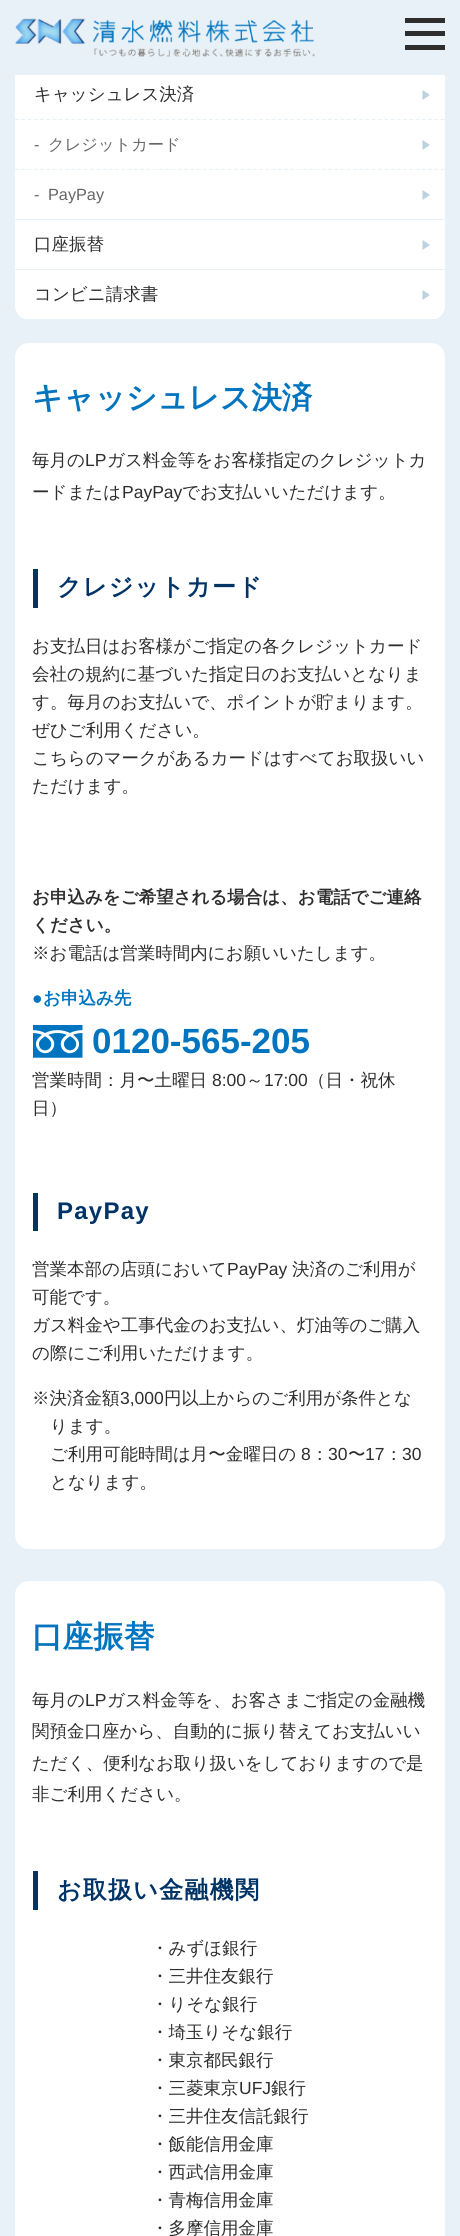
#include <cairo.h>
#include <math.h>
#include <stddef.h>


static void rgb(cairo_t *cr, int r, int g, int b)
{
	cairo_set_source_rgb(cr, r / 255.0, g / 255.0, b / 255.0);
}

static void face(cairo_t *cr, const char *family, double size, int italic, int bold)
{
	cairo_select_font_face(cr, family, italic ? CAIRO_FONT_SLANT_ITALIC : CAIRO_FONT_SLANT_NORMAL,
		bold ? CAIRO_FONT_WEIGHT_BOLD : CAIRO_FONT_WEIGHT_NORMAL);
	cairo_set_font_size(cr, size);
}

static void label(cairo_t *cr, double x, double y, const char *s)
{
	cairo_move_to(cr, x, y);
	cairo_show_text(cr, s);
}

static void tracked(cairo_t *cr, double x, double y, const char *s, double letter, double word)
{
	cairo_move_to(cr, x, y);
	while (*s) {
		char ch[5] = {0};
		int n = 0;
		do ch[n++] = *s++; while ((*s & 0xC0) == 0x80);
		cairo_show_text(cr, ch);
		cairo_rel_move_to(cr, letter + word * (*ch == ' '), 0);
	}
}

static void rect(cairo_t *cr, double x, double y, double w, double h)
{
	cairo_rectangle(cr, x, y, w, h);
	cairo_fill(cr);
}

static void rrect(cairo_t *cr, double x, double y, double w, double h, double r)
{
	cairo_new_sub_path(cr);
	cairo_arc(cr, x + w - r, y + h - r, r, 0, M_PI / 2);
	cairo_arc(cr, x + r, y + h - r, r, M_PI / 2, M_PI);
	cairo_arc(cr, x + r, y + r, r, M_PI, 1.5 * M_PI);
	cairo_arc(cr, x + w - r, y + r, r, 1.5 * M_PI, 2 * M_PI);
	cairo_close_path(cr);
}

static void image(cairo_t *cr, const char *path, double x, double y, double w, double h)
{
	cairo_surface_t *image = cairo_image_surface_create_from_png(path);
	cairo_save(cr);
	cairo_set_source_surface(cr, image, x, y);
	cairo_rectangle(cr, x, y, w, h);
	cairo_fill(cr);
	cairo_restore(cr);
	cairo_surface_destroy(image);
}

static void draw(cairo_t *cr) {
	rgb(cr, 231, 241, 247);
	cairo_paint(cr);
	image(cr, "image0.png", 15, 18, 300, 39);
	rgb(cr, 46, 46, 46);
	rect(cr, 405, 18, 40, 5);
	rect(cr, 405, 31, 40, 5);
	rect(cr, 405, 45, 40, 5);
	rgb(cr, 255, 255, 255);
	rect(cr, 15, 75, 430, 45);
	face(cr, "WenQuanYi Zen Hei Medium", 17.5, 0, 0);
	rgb(cr, 46, 46, 46);
	label(cr, 34, 100, "キャッシュレス決済");
	rgb(cr, 189, 210, 224);
	cairo_new_path(cr);
	cairo_move_to(cr, 422.5, 100);
	cairo_line_to(cr, 422.5, 90);
	cairo_line_to(cr, 430, 95);
	cairo_close_path(cr);
	cairo_fill(cr);
	cairo_new_path(cr);
	cairo_move_to(cr, 15, 119.5);
	cairo_line_to(cr, 445, 119.5);
	rgb(cr, 231, 241, 247);
	cairo_set_line_width(cr, 1.2);
	cairo_set_dash(cr, (double[]){3.75, 2.51}, 2, 0);
	cairo_stroke(cr);
	rgb(cr, 255, 255, 255);
	rect(cr, 15, 120, 430, 50);
	cairo_new_path(cr);
	cairo_move_to(cr, 15, 169.5);
	cairo_line_to(cr, 445, 169.5);
	rgb(cr, 231, 241, 247);
	cairo_stroke(cr);
	face(cr, "Liberation Sans", 16.25, 0, 0);
	rgb(cr, 102, 102, 102);
	label(cr, 34, 150, "-");
	face(cr, "WenQuanYi Zen Hei Medium", 16.25, 0, 0);
	label(cr, 48, 150, "クレジットカード");
	rgb(cr, 189, 210, 224);
	cairo_new_path(cr);
	cairo_move_to(cr, 422.5, 150);
	cairo_line_to(cr, 422.5, 140);
	cairo_line_to(cr, 430, 145);
	cairo_close_path(cr);
	cairo_fill(cr);
	rgb(cr, 255, 255, 255);
	rect(cr, 15, 170, 430, 49);
	face(cr, "Liberation Sans", 16.25, 0, 0);
	rgb(cr, 102, 102, 102);
	label(cr, 34, 200, "-");
	label(cr, 48, 200, "PayPay");
	rgb(cr, 189, 210, 224);
	cairo_new_path(cr);
	cairo_move_to(cr, 422.5, 200);
	cairo_line_to(cr, 422.5, 190);
	cairo_line_to(cr, 430, 195);
	cairo_close_path(cr);
	cairo_fill(cr);
	rgb(cr, 255, 255, 255);
	rect(cr, 15, 220, 430, 49);
	face(cr, "WenQuanYi Zen Hei Medium", 17.5, 0, 0);
	rgb(cr, 46, 46, 46);
	label(cr, 34, 250, "口座振替");
	rgb(cr, 189, 210, 224);
	cairo_new_path(cr);
	cairo_move_to(cr, 422.5, 250);
	cairo_line_to(cr, 422.5, 240);
	cairo_line_to(cr, 430, 245);
	cairo_close_path(cr);
	cairo_fill(cr);
	rgb(cr, 255, 255, 255);
	cairo_new_path(cr);
	cairo_move_to(cr, 15, 270);
	cairo_line_to(cr, 445, 270);
	cairo_line_to(cr, 445, 306);
	cairo_curve_to(cr, 445, 313.5, 438.5, 320, 431, 320);
	cairo_line_to(cr, 29, 320);
	cairo_curve_to(cr, 21.5, 320, 15, 313.5, 15, 306);
	cairo_close_path(cr);
	cairo_fill(cr);
	rgb(cr, 231, 241, 247);
	rect(cr, 21, 319, 418, 1);
	rgb(cr, 46, 46, 46);
	label(cr, 34, 300, "コンビニ請求書");
	rgb(cr, 189, 210, 224);
	cairo_new_path(cr);
	cairo_move_to(cr, 422.5, 300);
	cairo_line_to(cr, 422.5, 290);
	cairo_line_to(cr, 430, 295);
	cairo_close_path(cr);
	cairo_fill(cr);
	rgb(cr, 255, 255, 255);
	rrect(cr, 15, 343, 430, 1206, 14);
	cairo_fill(cr);
	face(cr, "WenQuanYi Zen Hei", 30.6, 0, 1);
	rgb(cr, 0, 116, 191);
	label(cr, 32, 408, "キャッシュレス決済");
	face(cr, "WenQuanYi Zen Hei Medium", 17.5, 0, 0);
	rgb(cr, 46, 46, 46);
	label(cr, 32, 466, "毎月の");
	face(cr, "Liberation Sans", 17.5, 0, 0);
	label(cr, 85, 466, "LP");
	face(cr, "WenQuanYi Zen Hei Medium", 17.5, 0, 0);
	label(cr, 107, 466, "ガス料金等をお客様指定のクレジットカ");
	label(cr, 32, 498, "ードまたは");
	face(cr, "Liberation Sans", 17.5, 0, 0);
	label(cr, 122, 498, "PayPay");
	face(cr, "WenQuanYi Zen Hei Medium", 17.5, 0, 0);
	label(cr, 182, 498, "でお支払いいただけます。");
	rgb(cr, 0, 51, 102);
	rect(cr, 33, 569, 5, 39);
	face(cr, "WenQuanYi Zen Hei", 24, 0, 1);
	tracked(cr, 57, 595, "クレジットカード", 1.25, 0);
	face(cr, "WenQuanYi Zen Hei Medium", 17.5, 0, 0);
	rgb(cr, 46, 46, 46);
	label(cr, 32, 652, "お支払日はお客様がご指定の各クレジットカード");
	label(cr, 32, 680, "会社の規約に基づいた指定日のお支払いとなりま");
	label(cr, 32, 708, "す。毎月のお支払いで、ポイントが貯まります。");
	label(cr, 32, 736, "ぜひご利用ください。");
	label(cr, 32, 764, "こちらのマークがあるカードはすべてお取扱いい");
	label(cr, 32, 792, "ただけます。");
	face(cr, "WenQuanYi Zen Hei", 17.5, 0, 1);
	label(cr, 32, 903, "お申込みをご希望される場合は、お電話でご連絡");
	label(cr, 32, 931, "ください。");
	face(cr, "WenQuanYi Zen Hei Medium", 17.5, 0, 0);
	label(cr, 32, 959, "※お電話は営業時間内にお願いいたします。");
	face(cr, "Liberation Sans", 17.5, 0, 1);
	rgb(cr, 0, 116, 191);
	label(cr, 32, 1004, "●");
	face(cr, "WenQuanYi Zen Hei", 17.5, 0, 1);
	label(cr, 43, 1004, "お申込み先");
	image(cr, "image1.png", 33, 1025, 50, 33);
	face(cr, "Liberation Sans", 35, 0, 1);
	label(cr, 92, 1053, "0120-565-205");
	face(cr, "WenQuanYi Zen Hei Medium", 17.5, 0, 0);
	rgb(cr, 46, 46, 46);
	label(cr, 32, 1086, "営業時間：月〜土曜日");
	face(cr, "Liberation Sans", 17.5, 0, 0);
	label(cr, 212, 1086, "8:00");
	face(cr, "WenQuanYi Zen Hei Medium", 17.5, 0, 0);
	label(cr, 246, 1086, "～");
	face(cr, "Liberation Sans", 17.5, 0, 0);
	label(cr, 264, 1086, "17:00");
	face(cr, "WenQuanYi Zen Hei Medium", 17.5, 0, 0);
	label(cr, 308, 1086, "（日・祝休");
	label(cr, 32, 1114, "日）");
	rgb(cr, 0, 51, 102);
	rect(cr, 33, 1193, 5, 38);
	face(cr, "Liberation Sans", 24, 0, 1);
	tracked(cr, 57, 1219, "PayPay", 1.25, 0);
	face(cr, "WenQuanYi Zen Hei Medium", 17.5, 0, 0);
	rgb(cr, 46, 46, 46);
	label(cr, 32, 1275, "営業本部の店頭において");
	face(cr, "Liberation Sans", 17.5, 0, 0);
	label(cr, 227, 1275, "PayPay");
	face(cr, "WenQuanYi Zen Hei Medium", 17.5, 0, 0);
	label(cr, 292, 1275, "決済のご利用が");
	label(cr, 32, 1303, "可能です。");
	label(cr, 32, 1331, "ガス料金や工事代金のお支払い、灯油等のご購入");
	label(cr, 32, 1359, "の際にご利用いただけます。");
	label(cr, 32, 1404, "※決済金額");
	face(cr, "Liberation Sans", 17.5, 0, 0);
	label(cr, 120, 1404, "3,000");
	face(cr, "WenQuanYi Zen Hei Medium", 17.5, 0, 0);
	label(cr, 164, 1404, "円以上からのご利用が条件とな");
	label(cr, 50, 1432, "ります。");
	label(cr, 50, 1460, "ご利用可能時間は月〜金曜日の");
	face(cr, "Liberation Sans", 17.5, 0, 0);
	label(cr, 301, 1460, "8");
	face(cr, "WenQuanYi Zen Hei Medium", 17.5, 0, 0);
	label(cr, 311, 1460, "：");
	face(cr, "Liberation Sans", 17.5, 0, 0);
	label(cr, 328, 1460, "30");
	face(cr, "WenQuanYi Zen Hei Medium", 17.5, 0, 0);
	label(cr, 348, 1460, "〜");
	face(cr, "Liberation Sans", 17.5, 0, 0);
	label(cr, 365, 1460, "17");
	face(cr, "WenQuanYi Zen Hei Medium", 17.5, 0, 0);
	label(cr, 385, 1460, "：");
	face(cr, "Liberation Sans", 17.5, 0, 0);
	label(cr, 402, 1460, "30");
	face(cr, "WenQuanYi Zen Hei Medium", 17.5, 0, 0);
	label(cr, 50, 1488, "となります。");
	rgb(cr, 255, 255, 255);
	rrect(cr, 15, 1581, 430, 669, 14);
	cairo_fill(cr);
	face(cr, "WenQuanYi Zen Hei", 30.6, 0, 1);
	rgb(cr, 0, 116, 191);
	label(cr, 32, 1647, "口座振替");
	face(cr, "WenQuanYi Zen Hei Medium", 17.5, 0, 0);
	rgb(cr, 46, 46, 46);
	label(cr, 32, 1706, "毎月の");
	face(cr, "Liberation Sans", 17.5, 0, 0);
	label(cr, 85, 1706, "LP");
	face(cr, "WenQuanYi Zen Hei Medium", 17.5, 0, 0);
	label(cr, 107, 1706, "ガス料金等を、お客さまご指定の金融機");
	label(cr, 32, 1737, "関預金口座から、自動的に振り替えてお支払いい");
	label(cr, 32, 1769, "ただく、便利なお取り扱いをしておりますので是");
	label(cr, 32, 1800, "非ご利用ください。");
	rgb(cr, 0, 51, 102);
	rect(cr, 33, 1871, 5, 39);
	face(cr, "WenQuanYi Zen Hei", 24, 0, 1);
	tracked(cr, 57, 1898, "お取扱い金融機関", 1.25, 0);
	face(cr, "WenQuanYi Zen Hei Medium", 17.5, 0, 0);
	rgb(cr, 46, 46, 46);
	label(cr, 151, 1954, "・みずほ銀行");
	label(cr, 151, 1982, "・三井住友銀行");
	label(cr, 151, 2010, "・りそな銀行");
	label(cr, 151, 2038, "・埼玉りそな銀行");
	label(cr, 151, 2066, "・東京都民銀行");
	label(cr, 151, 2094, "・三菱東京");
	face(cr, "Liberation Sans", 17.5, 0, 0);
	label(cr, 239, 2094, "UFJ");
	face(cr, "WenQuanYi Zen Hei Medium", 17.5, 0, 0);
	label(cr, 271, 2094, "銀行");
	label(cr, 151, 2122, "・三井住友信託銀行");
	label(cr, 151, 2150, "・飯能信用金庫");
	label(cr, 151, 2178, "・西武信用金庫");
	label(cr, 151, 2206, "・青梅信用金庫");
	label(cr, 151, 2234, "・多摩信用金庫");
}

int main(void) {
	cairo_surface_t *surface = cairo_image_surface_create(CAIRO_FORMAT_RGB24, 460, 2236);
	cairo_t *cr = cairo_create(surface);
	cairo_font_options_t *options = cairo_font_options_create();
	cairo_font_options_set_hint_metrics(options, CAIRO_HINT_METRICS_OFF);
	cairo_font_options_set_hint_style(options, CAIRO_HINT_STYLE_NONE);
	cairo_set_font_options(cr, options);
	cairo_set_miter_limit(cr, 4);
	draw(cr);
	cairo_surface_write_to_png(surface, "render.png");
	cairo_font_options_destroy(options);
	cairo_destroy(cr);
	cairo_surface_destroy(surface);
	return 0;
}
